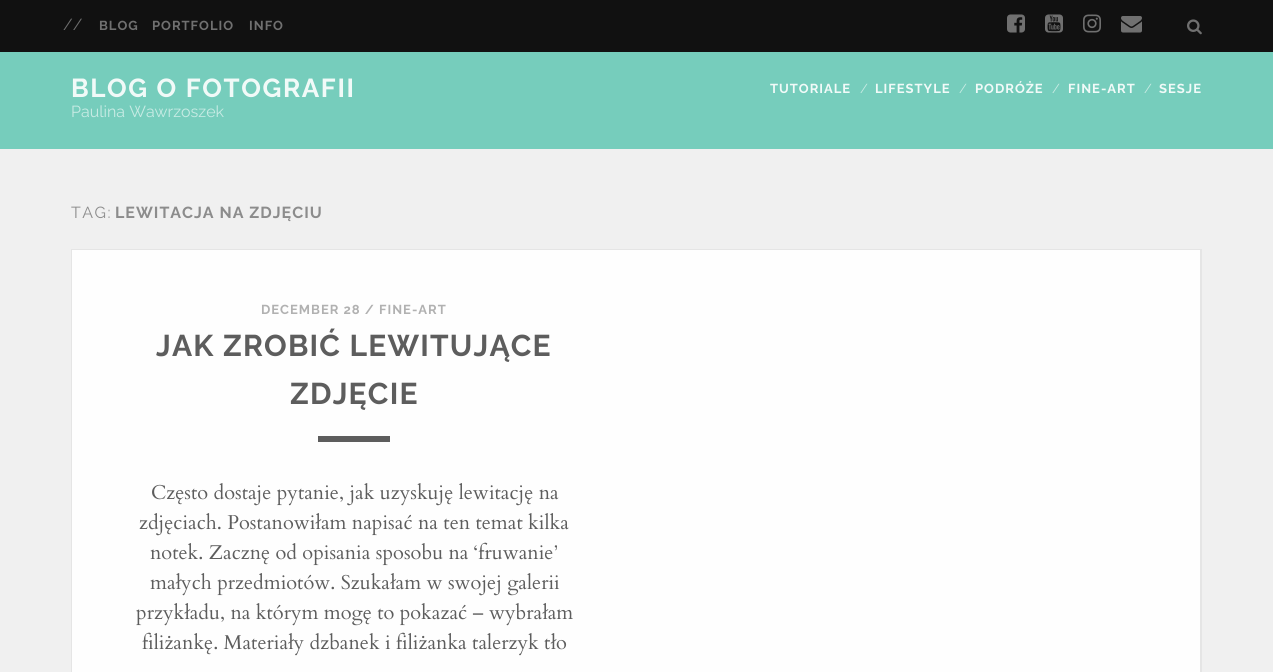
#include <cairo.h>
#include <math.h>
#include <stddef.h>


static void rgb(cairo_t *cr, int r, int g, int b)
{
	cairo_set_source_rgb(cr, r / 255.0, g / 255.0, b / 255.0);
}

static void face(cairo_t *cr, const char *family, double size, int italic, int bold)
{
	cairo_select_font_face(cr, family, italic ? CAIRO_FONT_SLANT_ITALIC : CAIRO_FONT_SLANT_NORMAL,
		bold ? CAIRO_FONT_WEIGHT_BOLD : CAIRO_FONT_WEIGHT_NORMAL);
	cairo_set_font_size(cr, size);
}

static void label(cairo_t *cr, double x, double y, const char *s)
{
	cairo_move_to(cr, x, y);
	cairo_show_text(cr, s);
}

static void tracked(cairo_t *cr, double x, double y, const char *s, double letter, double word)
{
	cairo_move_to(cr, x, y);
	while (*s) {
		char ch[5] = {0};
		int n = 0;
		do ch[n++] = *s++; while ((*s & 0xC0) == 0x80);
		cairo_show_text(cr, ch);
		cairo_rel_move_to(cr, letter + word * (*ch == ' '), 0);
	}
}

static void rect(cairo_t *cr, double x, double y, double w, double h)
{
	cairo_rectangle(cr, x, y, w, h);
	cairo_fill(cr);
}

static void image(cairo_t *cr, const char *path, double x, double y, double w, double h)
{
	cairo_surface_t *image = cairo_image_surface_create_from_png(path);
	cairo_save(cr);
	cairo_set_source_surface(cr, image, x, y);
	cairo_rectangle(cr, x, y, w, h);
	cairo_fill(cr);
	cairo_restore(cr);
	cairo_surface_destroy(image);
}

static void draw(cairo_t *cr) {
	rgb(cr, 240, 240, 240);
	cairo_paint(cr);
	rgb(cr, 118, 205, 188);
	rect(cr, 0, 52, 1273, 97);
	rgb(cr, 17, 17, 17);
	rect(cr, 0, 0, 1273, 52);
	face(cr, "Raleway", 16, 0, 0);
	rgb(cr, 112, 112, 112);
	label(cr, 63, 30, "//");
	face(cr, "Raleway", 13, 0, 1);
	tracked(cr, 99, 30, "BLOG", 1, 0);
	tracked(cr, 152, 30, "PORTFOLIO", 1, 0);
	tracked(cr, 249, 30, "INFO", 1, 0);
	image(cr, "image0.png", 1007, 14, 18, 19);
	image(cr, "image1.png", 1045, 14, 18, 19);
	image(cr, "image2.png", 1083, 14, 18, 19);
	image(cr, "image3.png", 1121, 16, 21, 17);
	image(cr, "image4.png", 1187, 19, 15, 16);
	face(cr, "Raleway", 26, 0, 1);
	rgb(cr, 241, 250, 248);
	tracked(cr, 71, 97, "BLOG O FOTOGRAFII", 1.6, 0);
	face(cr, "Raleway", 13, 0, 1);
	tracked(cr, 770, 93, "TUTORIALE", 1, 0);
	face(cr, "Raleway", 13, 0, 0);
	rgb(cr, 200, 235, 228);
	label(cr, 860, 93, "/");
	face(cr, "Raleway", 13, 0, 1);
	rgb(cr, 241, 250, 248);
	tracked(cr, 875, 93, "LIFESTYLE", 1, 0);
	face(cr, "Raleway", 13, 0, 0);
	rgb(cr, 200, 235, 228);
	label(cr, 959, 93, "/");
	face(cr, "Raleway", 13, 0, 1);
	rgb(cr, 241, 250, 248);
	tracked(cr, 975, 93, "PODRÓŻE", 1, 0);
	face(cr, "Raleway", 13, 0, 0);
	rgb(cr, 200, 235, 228);
	label(cr, 1052, 93, "/");
	face(cr, "Raleway", 13, 0, 1);
	rgb(cr, 241, 250, 248);
	tracked(cr, 1068, 93, "FINE-ART", 1, 0);
	face(cr, "Raleway", 13, 0, 0);
	rgb(cr, 200, 235, 228);
	label(cr, 1144, 93, "/");
	face(cr, "Raleway", 13, 0, 1);
	rgb(cr, 241, 250, 248);
	tracked(cr, 1159, 93, "SESJE", 1, 0);
	face(cr, "Raleway", 16, 0, 0);
	rgb(cr, 200, 235, 228);
	label(cr, 71, 117, "Paulina Wawrzoszek");
	rgb(cr, 140, 140, 140);
	tracked(cr, 71, 218, "TAG:", 1.5, 0);
	face(cr, "Raleway", 16, 0, 1);
	tracked(cr, 115, 218, "LEWITACJA NA ZDJĘCIU", 1, 0);
	rgb(cr, 254, 254, 254);
	rect(cr, 72, 250, 1128, 422);
	rgb(cr, 229, 229, 229);
	rect(cr, 71, 249, 1131, 1);
	rect(cr, 1200, 249, 2, 423);
	rect(cr, 71, 249, 1, 423);
	face(cr, "Raleway", 13, 0, 1);
	rgb(cr, 177, 177, 177);
	tracked(cr, 261, 314, "DECEMBER 28 / FINE-ART", 1, 0);
	face(cr, "Raleway", 30, 0, 1);
	rgb(cr, 93, 93, 93);
	tracked(cr, 156, 356, "JAK ZROBIĆ LEWITUJĄCE", 1.2, 0);
	tracked(cr, 290, 404, "ZDJĘCIE", 1.2, 0);
	rect(cr, 318, 436, 72, 6);
	face(cr, "Cardo", 20, 0, 0);
	label(cr, 151, 499, "Często dostaje pytanie, jak uzyskuję lewitację na");
	label(cr, 139, 529, "zdjęciach. Postanowiłam napisać na ten temat kilka");
	label(cr, 150, 559, "notek. Zacznę od opisania sposobu na ‘fruwanie’");
	label(cr, 150, 589, "małych przedmiotów. Szukałam w swojej galerii");
	label(cr, 136, 619, "przykładu, na którym mogę to pokazać – wybrałam");
	label(cr, 142, 649, "filiżankę. Materiały dzbanek i filiżanka talerzyk tło");
}

int main(void) {
	cairo_surface_t *surface = cairo_image_surface_create(CAIRO_FORMAT_RGB24, 1273, 672);
	cairo_t *cr = cairo_create(surface);
	cairo_font_options_t *options = cairo_font_options_create();
	cairo_font_options_set_hint_metrics(options, CAIRO_HINT_METRICS_OFF);
	cairo_font_options_set_hint_style(options, CAIRO_HINT_STYLE_NONE);
	cairo_set_font_options(cr, options);
	cairo_set_miter_limit(cr, 4);
	draw(cr);
	cairo_surface_write_to_png(surface, "render.png");
	cairo_font_options_destroy(options);
	cairo_destroy(cr);
	cairo_surface_destroy(surface);
	return 0;
}
